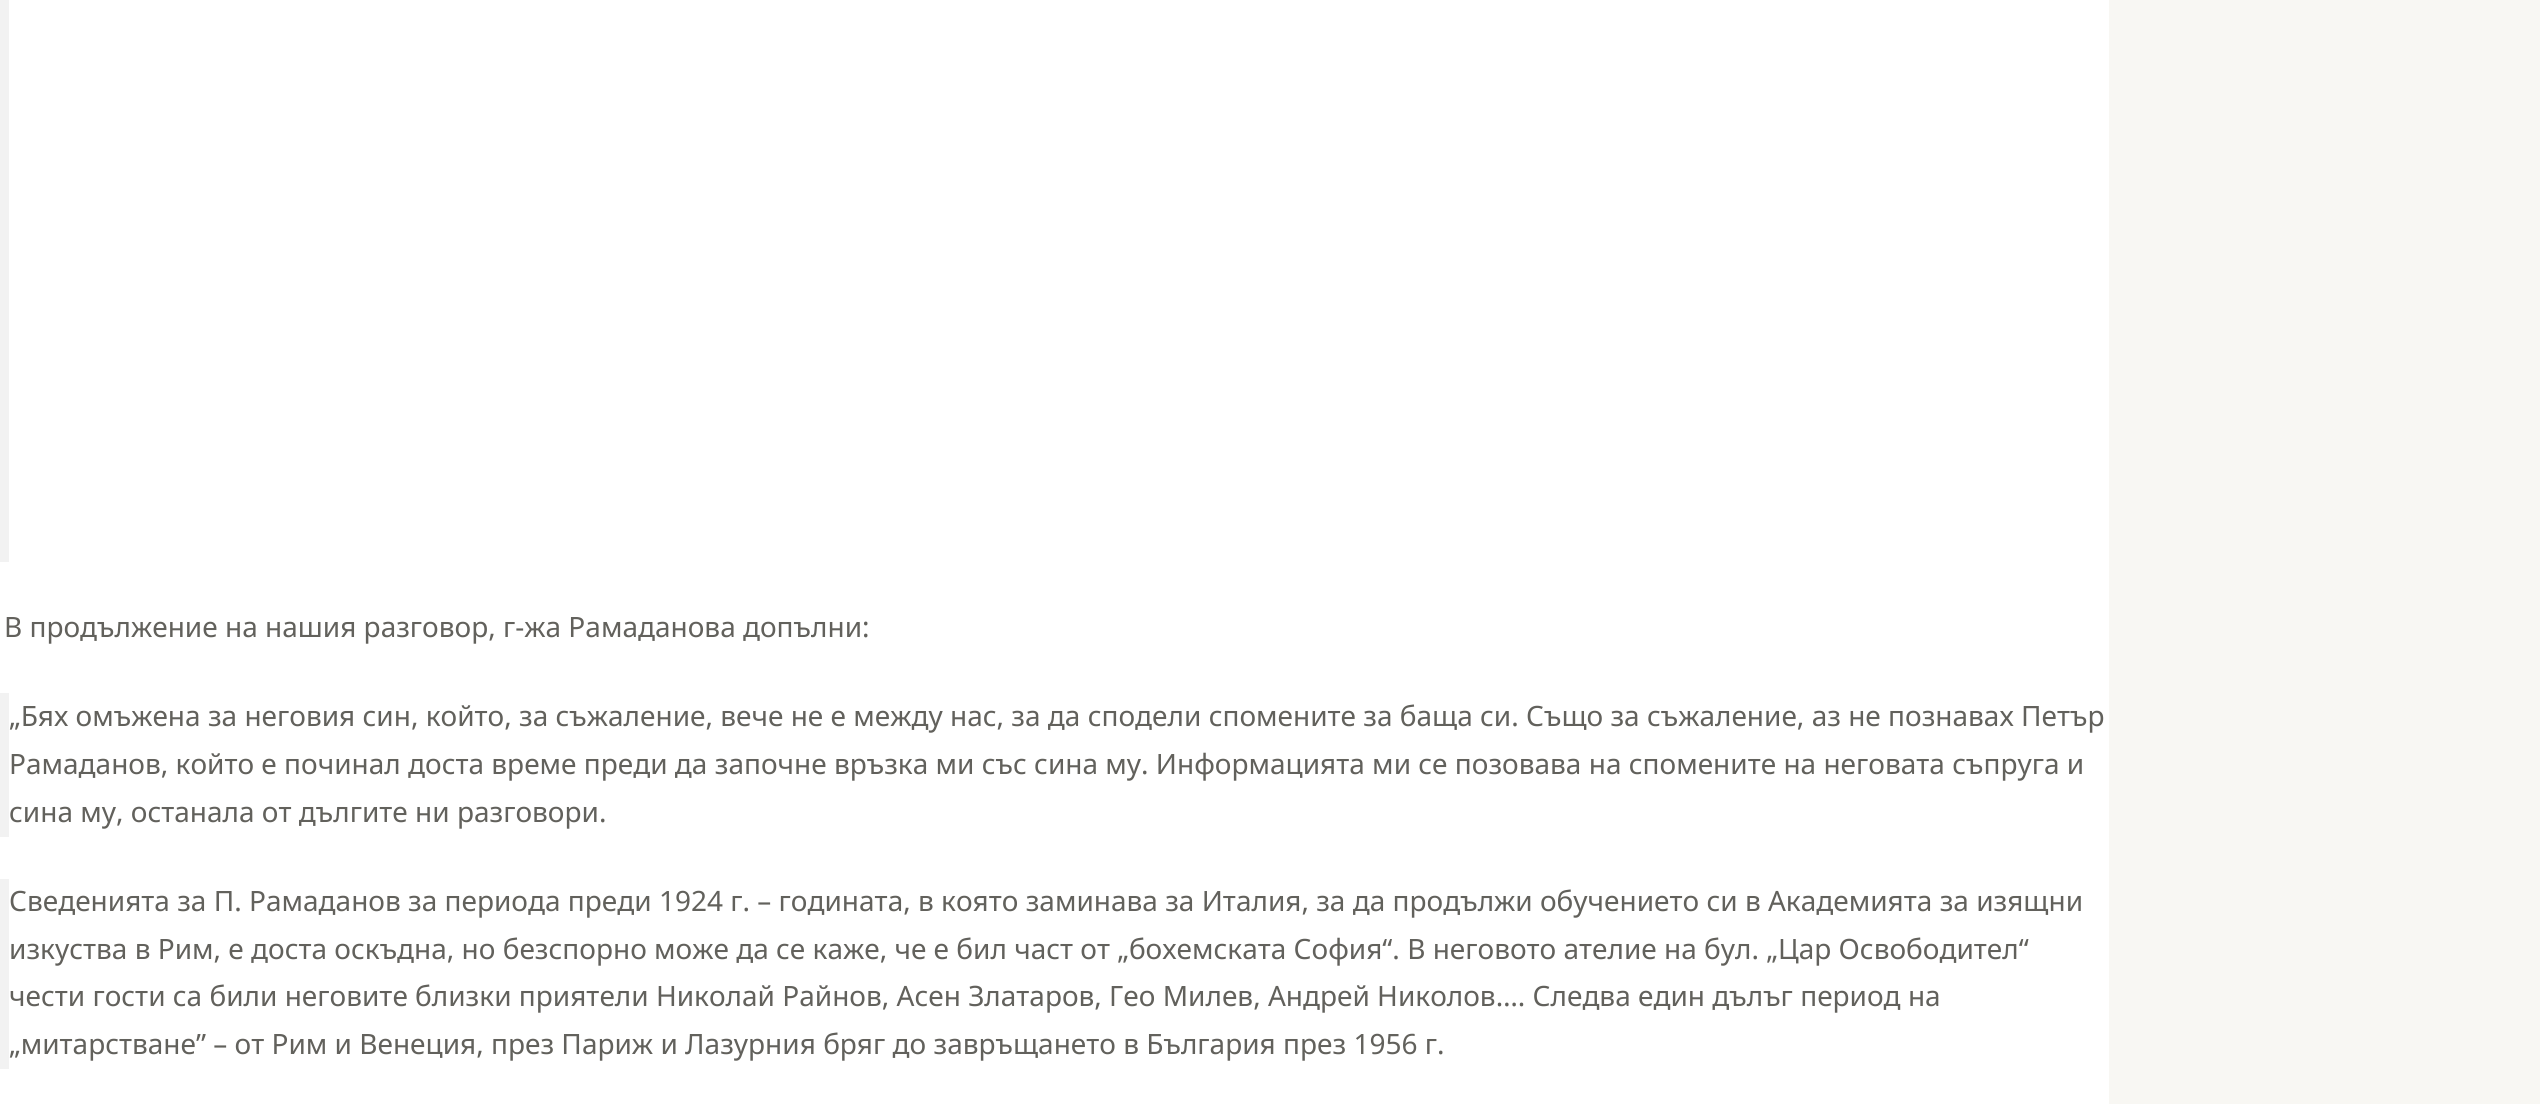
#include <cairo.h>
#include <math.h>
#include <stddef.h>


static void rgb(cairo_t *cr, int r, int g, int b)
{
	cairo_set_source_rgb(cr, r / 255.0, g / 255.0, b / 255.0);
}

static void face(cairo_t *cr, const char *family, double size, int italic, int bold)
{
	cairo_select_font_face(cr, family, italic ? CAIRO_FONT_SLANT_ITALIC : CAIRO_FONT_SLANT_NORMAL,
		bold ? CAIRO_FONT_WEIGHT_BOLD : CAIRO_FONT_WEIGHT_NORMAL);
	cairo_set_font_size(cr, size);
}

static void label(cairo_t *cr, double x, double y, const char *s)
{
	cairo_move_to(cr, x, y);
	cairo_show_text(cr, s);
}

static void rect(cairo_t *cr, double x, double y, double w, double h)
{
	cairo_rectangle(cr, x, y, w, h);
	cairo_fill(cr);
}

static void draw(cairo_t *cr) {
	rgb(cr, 248, 247, 243);
	cairo_paint(cr);
	rgb(cr, 255, 255, 255);
	rect(cr, 0, 0, 2109, 1104);
	rgb(cr, 242, 242, 242);
	rect(cr, 0, 0, 9, 562);
	face(cr, "Noto Sans", 28, 0, 0);
	rgb(cr, 98, 97, 92);
	label(cr, 4, 637, "В продължение на нашия разговор, г-жа Рамаданова допълни:");
	rgb(cr, 242, 242, 242);
	rect(cr, 0, 693, 9, 144);
	rgb(cr, 98, 97, 92);
	label(cr, 9, 726, "„Бях омъжена за неговия син, който, за съжаление, вече не е между нас, за да сподели спомените за баща си. Също за съжаление, аз не познавах Петър");
	label(cr, 9, 774, "Рамаданов, който е починал доста време преди да започне връзка ми със сина му. Информацията ми се позовава на спомените на неговата съпруга и");
	label(cr, 9, 822, "сина му, останала от дългите ни разговори.");
	rgb(cr, 242, 242, 242);
	rect(cr, 0, 879, 9, 190);
	rgb(cr, 98, 97, 92);
	label(cr, 9, 911, "Сведенията за П. Рамаданов за периода преди 1924 г. – годината, в която заминава за Италия, за да продължи обучението си в Академията за изящни");
	label(cr, 9, 959, "изкуства в Рим, е доста оскъдна, но безспорно може да се каже, че е бил част от „бохемската София“. В неговото ателие на бул. „Цар Освободител“");
	label(cr, 9, 1006, "чести гости са били неговите близки приятели Николай Райнов, Асен Златаров, Гео Милев, Андрей Николов…. Следва един дълъг период на");
	label(cr, 9, 1054, "„митарстване” – от Рим и Венеция, през Париж и Лазурния бряг до завръщането в България през 1956 г.");
}

int main(void) {
	cairo_surface_t *surface = cairo_image_surface_create(CAIRO_FORMAT_RGB24, 2540, 1104);
	cairo_t *cr = cairo_create(surface);
	cairo_font_options_t *options = cairo_font_options_create();
	cairo_font_options_set_hint_metrics(options, CAIRO_HINT_METRICS_OFF);
	cairo_font_options_set_hint_style(options, CAIRO_HINT_STYLE_NONE);
	cairo_set_font_options(cr, options);
	cairo_set_miter_limit(cr, 4);
	draw(cr);
	cairo_surface_write_to_png(surface, "render.png");
	cairo_font_options_destroy(options);
	cairo_destroy(cr);
	cairo_surface_destroy(surface);
	return 0;
}
